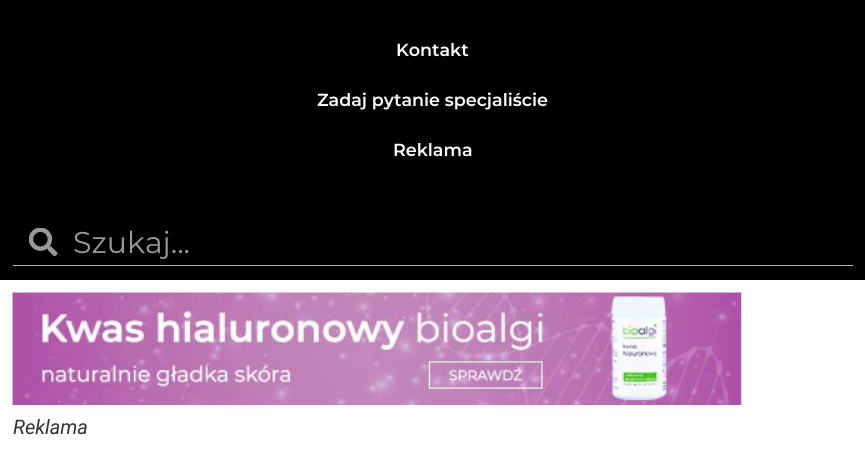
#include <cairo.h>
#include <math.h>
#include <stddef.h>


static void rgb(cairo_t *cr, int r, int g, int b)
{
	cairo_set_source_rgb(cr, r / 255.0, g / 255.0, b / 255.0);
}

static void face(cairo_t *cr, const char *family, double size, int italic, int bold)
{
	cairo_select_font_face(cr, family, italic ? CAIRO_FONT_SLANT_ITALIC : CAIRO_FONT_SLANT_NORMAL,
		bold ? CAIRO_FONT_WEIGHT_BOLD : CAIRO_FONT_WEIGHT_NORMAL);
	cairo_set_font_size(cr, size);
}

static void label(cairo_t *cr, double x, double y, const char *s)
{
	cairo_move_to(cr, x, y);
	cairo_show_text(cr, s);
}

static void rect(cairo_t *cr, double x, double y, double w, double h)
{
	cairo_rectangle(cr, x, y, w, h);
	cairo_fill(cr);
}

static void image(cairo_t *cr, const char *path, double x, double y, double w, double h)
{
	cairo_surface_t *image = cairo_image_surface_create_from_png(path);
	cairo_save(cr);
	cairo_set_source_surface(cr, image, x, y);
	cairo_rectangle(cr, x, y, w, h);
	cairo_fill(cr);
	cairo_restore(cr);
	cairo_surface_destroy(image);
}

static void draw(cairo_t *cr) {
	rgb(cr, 255, 255, 255);
	cairo_paint(cr);
	rgb(cr, 0, 0, 0);
	rect(cr, 0, 188, 865, 92);
	rgb(cr, 2, 0, 0);
	rect(cr, 0, 0, 865, 188);
	face(cr, "Montserrat SemiBold", 17.5, 0, 0);
	rgb(cr, 255, 255, 255);
	label(cr, 396, 56, "Kontakt");
	label(cr, 317, 106, "Zadaj pytanie specjaliście");
	label(cr, 393, 156, "Reklama");
	rgb(cr, 186, 186, 186);
	rect(cr, 13, 265, 840, 1);
	image(cr, "image0.png", 29, 228, 29, 28);
	face(cr, "Montserrat", 30, 0, 0);
	rgb(cr, 153, 153, 153);
	label(cr, 73, 253, "Szukaj...");
	image(cr, "image1.png", 12, 292, 730, 113);
	face(cr, "Roboto", 20, 1, 0);
	rgb(cr, 51, 51, 51);
	label(cr, 13, 434, "Reklama");
}

int main(void) {
	cairo_surface_t *surface = cairo_image_surface_create(CAIRO_FORMAT_RGB24, 865, 476);
	cairo_t *cr = cairo_create(surface);
	cairo_font_options_t *options = cairo_font_options_create();
	cairo_font_options_set_hint_metrics(options, CAIRO_HINT_METRICS_OFF);
	cairo_font_options_set_hint_style(options, CAIRO_HINT_STYLE_NONE);
	cairo_set_font_options(cr, options);
	cairo_set_miter_limit(cr, 4);
	draw(cr);
	cairo_surface_write_to_png(surface, "render.png");
	cairo_font_options_destroy(options);
	cairo_destroy(cr);
	cairo_surface_destroy(surface);
	return 0;
}
